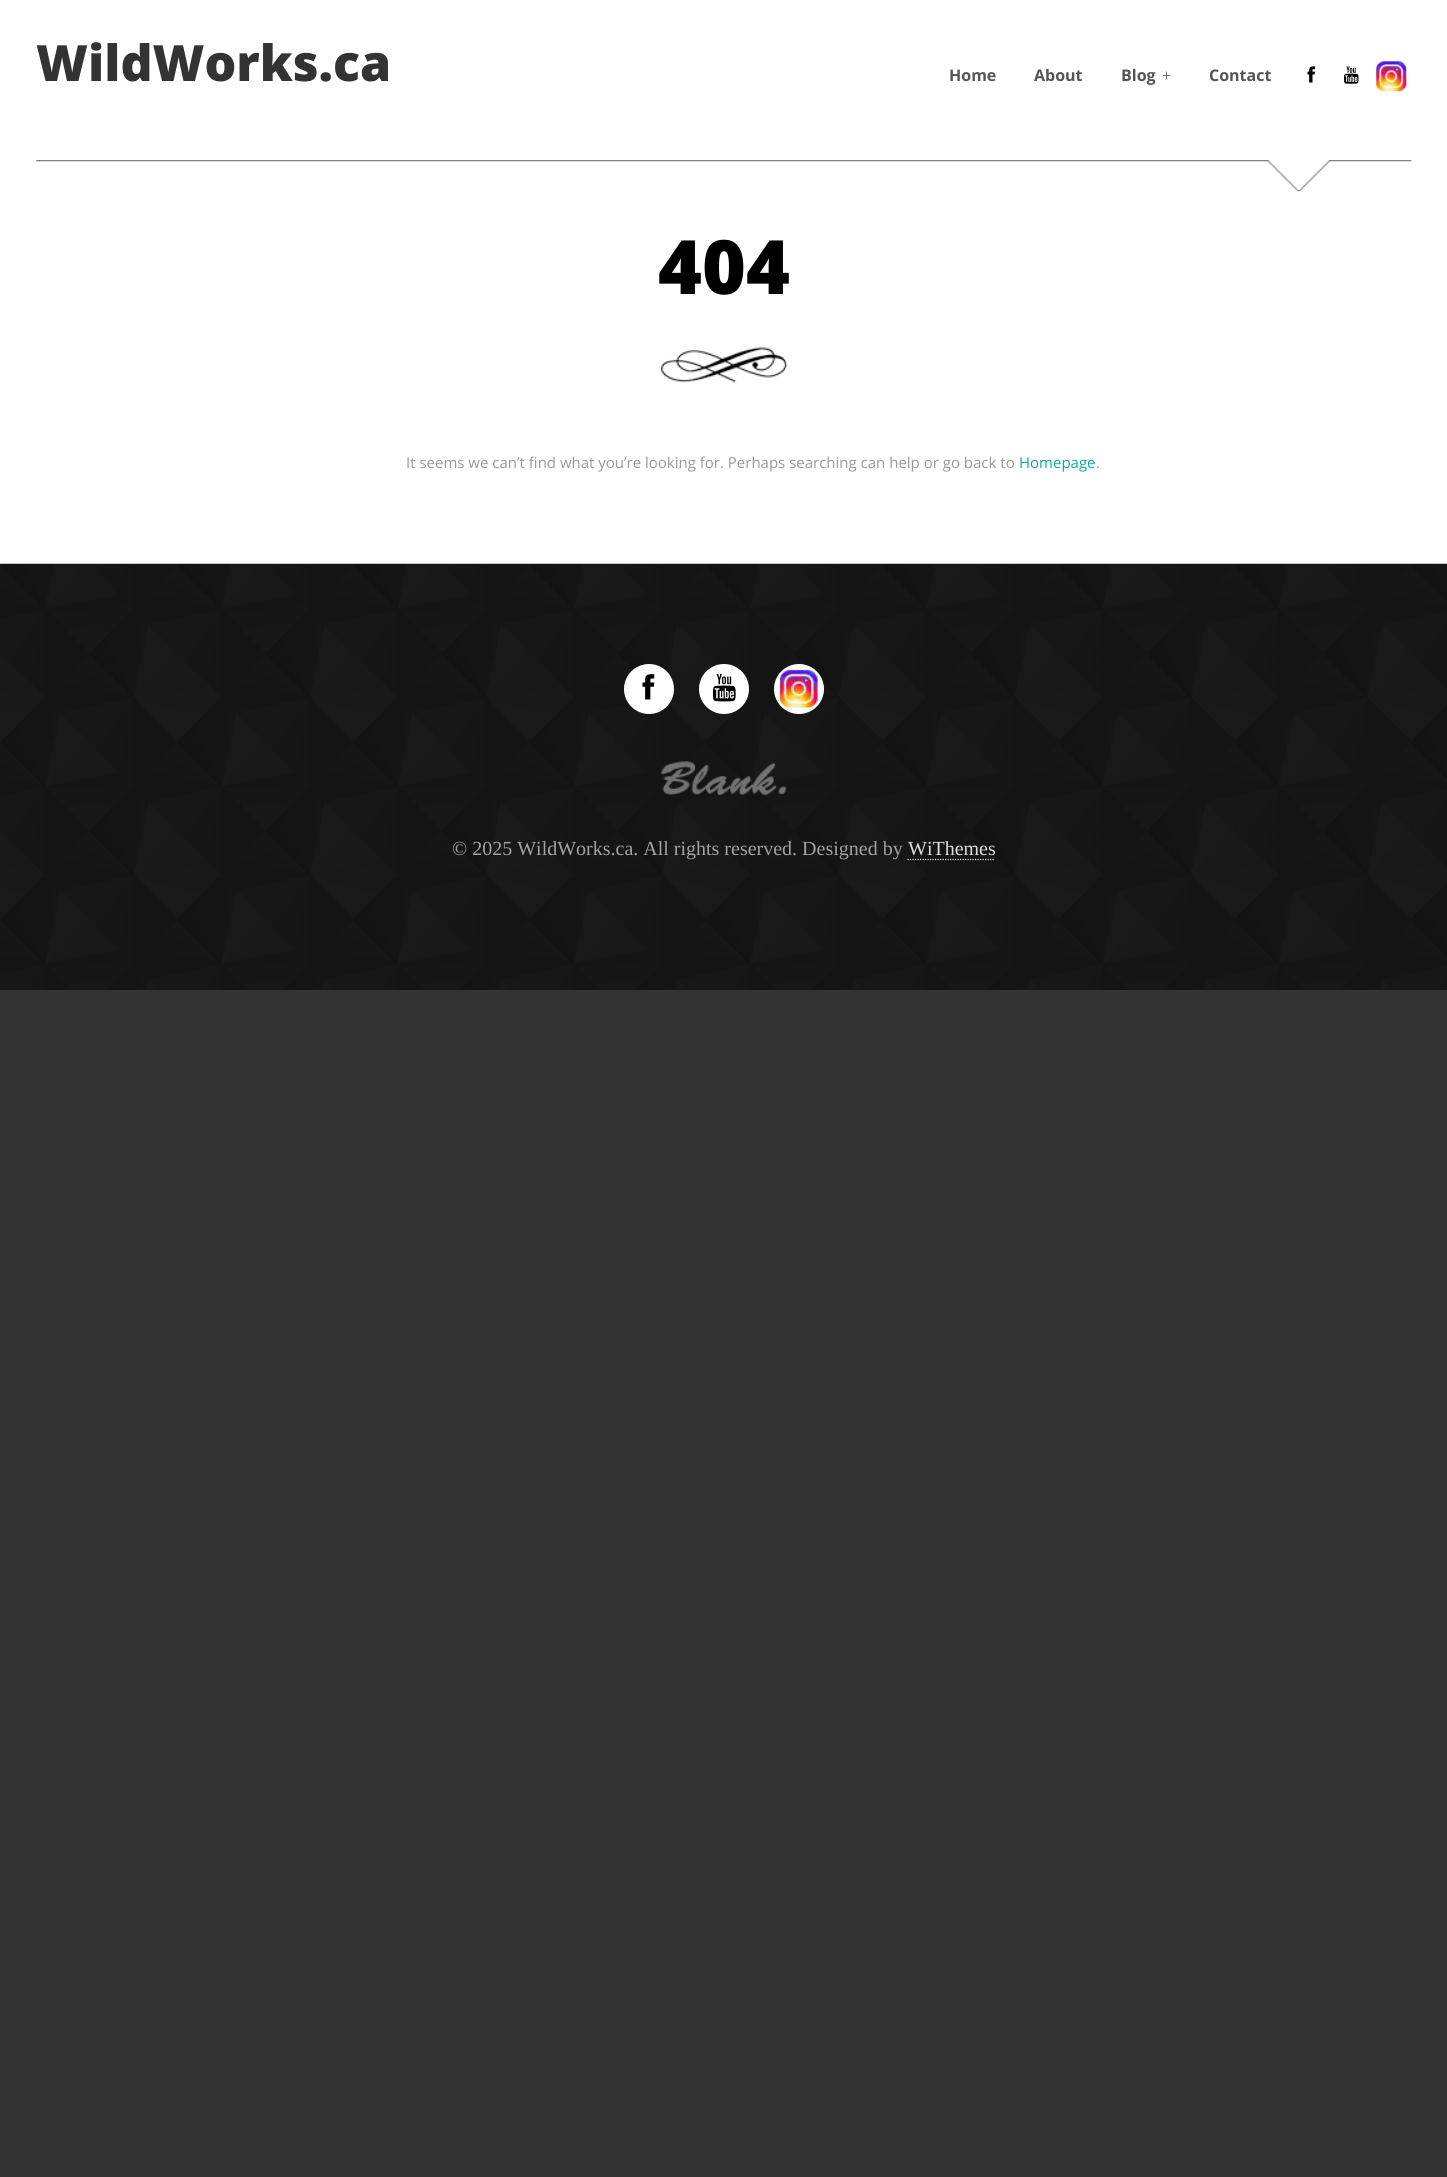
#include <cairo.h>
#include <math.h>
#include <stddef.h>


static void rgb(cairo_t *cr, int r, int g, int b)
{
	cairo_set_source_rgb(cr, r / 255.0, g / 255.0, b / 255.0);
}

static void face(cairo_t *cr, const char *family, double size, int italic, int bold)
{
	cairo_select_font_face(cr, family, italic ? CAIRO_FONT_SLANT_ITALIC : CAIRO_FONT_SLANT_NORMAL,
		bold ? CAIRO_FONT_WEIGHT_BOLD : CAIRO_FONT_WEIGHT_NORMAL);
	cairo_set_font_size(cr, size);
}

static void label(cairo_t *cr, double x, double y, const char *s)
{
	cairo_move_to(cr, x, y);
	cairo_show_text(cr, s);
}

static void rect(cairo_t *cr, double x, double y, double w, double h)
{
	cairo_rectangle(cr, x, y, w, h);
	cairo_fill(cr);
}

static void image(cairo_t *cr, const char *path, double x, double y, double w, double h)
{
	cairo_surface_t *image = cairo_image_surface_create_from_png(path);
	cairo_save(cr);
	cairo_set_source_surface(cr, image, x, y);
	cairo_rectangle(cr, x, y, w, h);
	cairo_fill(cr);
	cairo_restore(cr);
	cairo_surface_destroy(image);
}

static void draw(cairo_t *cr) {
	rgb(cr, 51, 51, 51);
	cairo_paint(cr);
	rgb(cr, 255, 255, 255);
	rect(cr, 0, 0, 1447, 564);
	face(cr, "Open Sans ExtraBold", 50, 0, 0);
	rgb(cr, 51, 51, 51);
	label(cr, 36, 81, "WildWorks.ca");
	face(cr, "Open Sans", 16, 0, 1);
	rgb(cr, 85, 85, 85);
	label(cr, 949, 81, "Home");
	label(cr, 1034, 81, "About");
	label(cr, 1121, 81, "Blog");
	face(cr, "Open Sans Light", 16, 0, 0);
	rgb(cr, 51, 51, 51);
	label(cr, 1162, 81, "+");
	face(cr, "Open Sans", 16, 0, 1);
	rgb(cr, 85, 85, 85);
	label(cr, 1209, 81, "Contact");
	image(cr, "image0.png", 1307, 66, 8, 17);
	image(cr, "image1.png", 1344, 66, 15, 18);
	image(cr, "image2.png", 1376, 61, 31, 31);
	image(cr, "image3.png", 36, 160, 1376, 32);
	face(cr, "Open Sans ExtraBold", 75, 0, 0);
	rgb(cr, 0, 0, 0);
	label(cr, 658, 294, "404");
	image(cr, "image4.png", 661, 347, 126, 36);
	face(cr, "Open Sans", 15, 0, 0);
	rgb(cr, 153, 153, 153);
	label(cr, 406, 468, "It seems we can’t find what you’re looking for. Perhaps searching can help or go back to");
	rgb(cr, 13, 173, 157);
	label(cr, 1019, 468, "Homepage");
	rgb(cr, 153, 153, 153);
	label(cr, 1096, 468, ".");
	image(cr, "image5.png", 0, 563, 1447, 427);
	rgb(cr, 255, 255, 255);
	cairo_arc(cr, 649, 689, 25, 0, 2 * M_PI);
	cairo_fill(cr);
	image(cr, "image6.png", 642, 674, 13, 26);
	cairo_arc(cr, 724, 689, 25, 0, 2 * M_PI);
	cairo_fill(cr);
	image(cr, "image7.png", 712, 673, 24, 29);
	cairo_arc(cr, 799, 689, 25, 0, 2 * M_PI);
	cairo_fill(cr);
	image(cr, "image8.png", 779, 669, 39, 39);
	image(cr, "image9.png", 661, 761, 126, 34);
	face(cr, "Liberation Serif", 20, 0, 0);
	rgb(cr, 162, 162, 162);
	label(cr, 452, 855, "© 2025 WildWorks.ca. All rights reserved. Designed by");
	rgb(cr, 221, 221, 221);
	label(cr, 908, 855, "WiThemes");
	cairo_new_path(cr);
	cairo_move_to(cr, 907.5, 859.5);
	cairo_line_to(cr, 995, 859.5);
	cairo_set_line_width(cr, 1.2);
	cairo_set_dash(cr, (double[]){1.25, 1.25}, 2, 0);
	cairo_stroke(cr);
}

int main(void) {
	cairo_surface_t *surface = cairo_image_surface_create(CAIRO_FORMAT_RGB24, 1447, 2177);
	cairo_t *cr = cairo_create(surface);
	cairo_font_options_t *options = cairo_font_options_create();
	cairo_font_options_set_hint_metrics(options, CAIRO_HINT_METRICS_OFF);
	cairo_font_options_set_hint_style(options, CAIRO_HINT_STYLE_NONE);
	cairo_set_font_options(cr, options);
	cairo_set_miter_limit(cr, 4);
	draw(cr);
	cairo_surface_write_to_png(surface, "render.png");
	cairo_font_options_destroy(options);
	cairo_destroy(cr);
	cairo_surface_destroy(surface);
	return 0;
}
